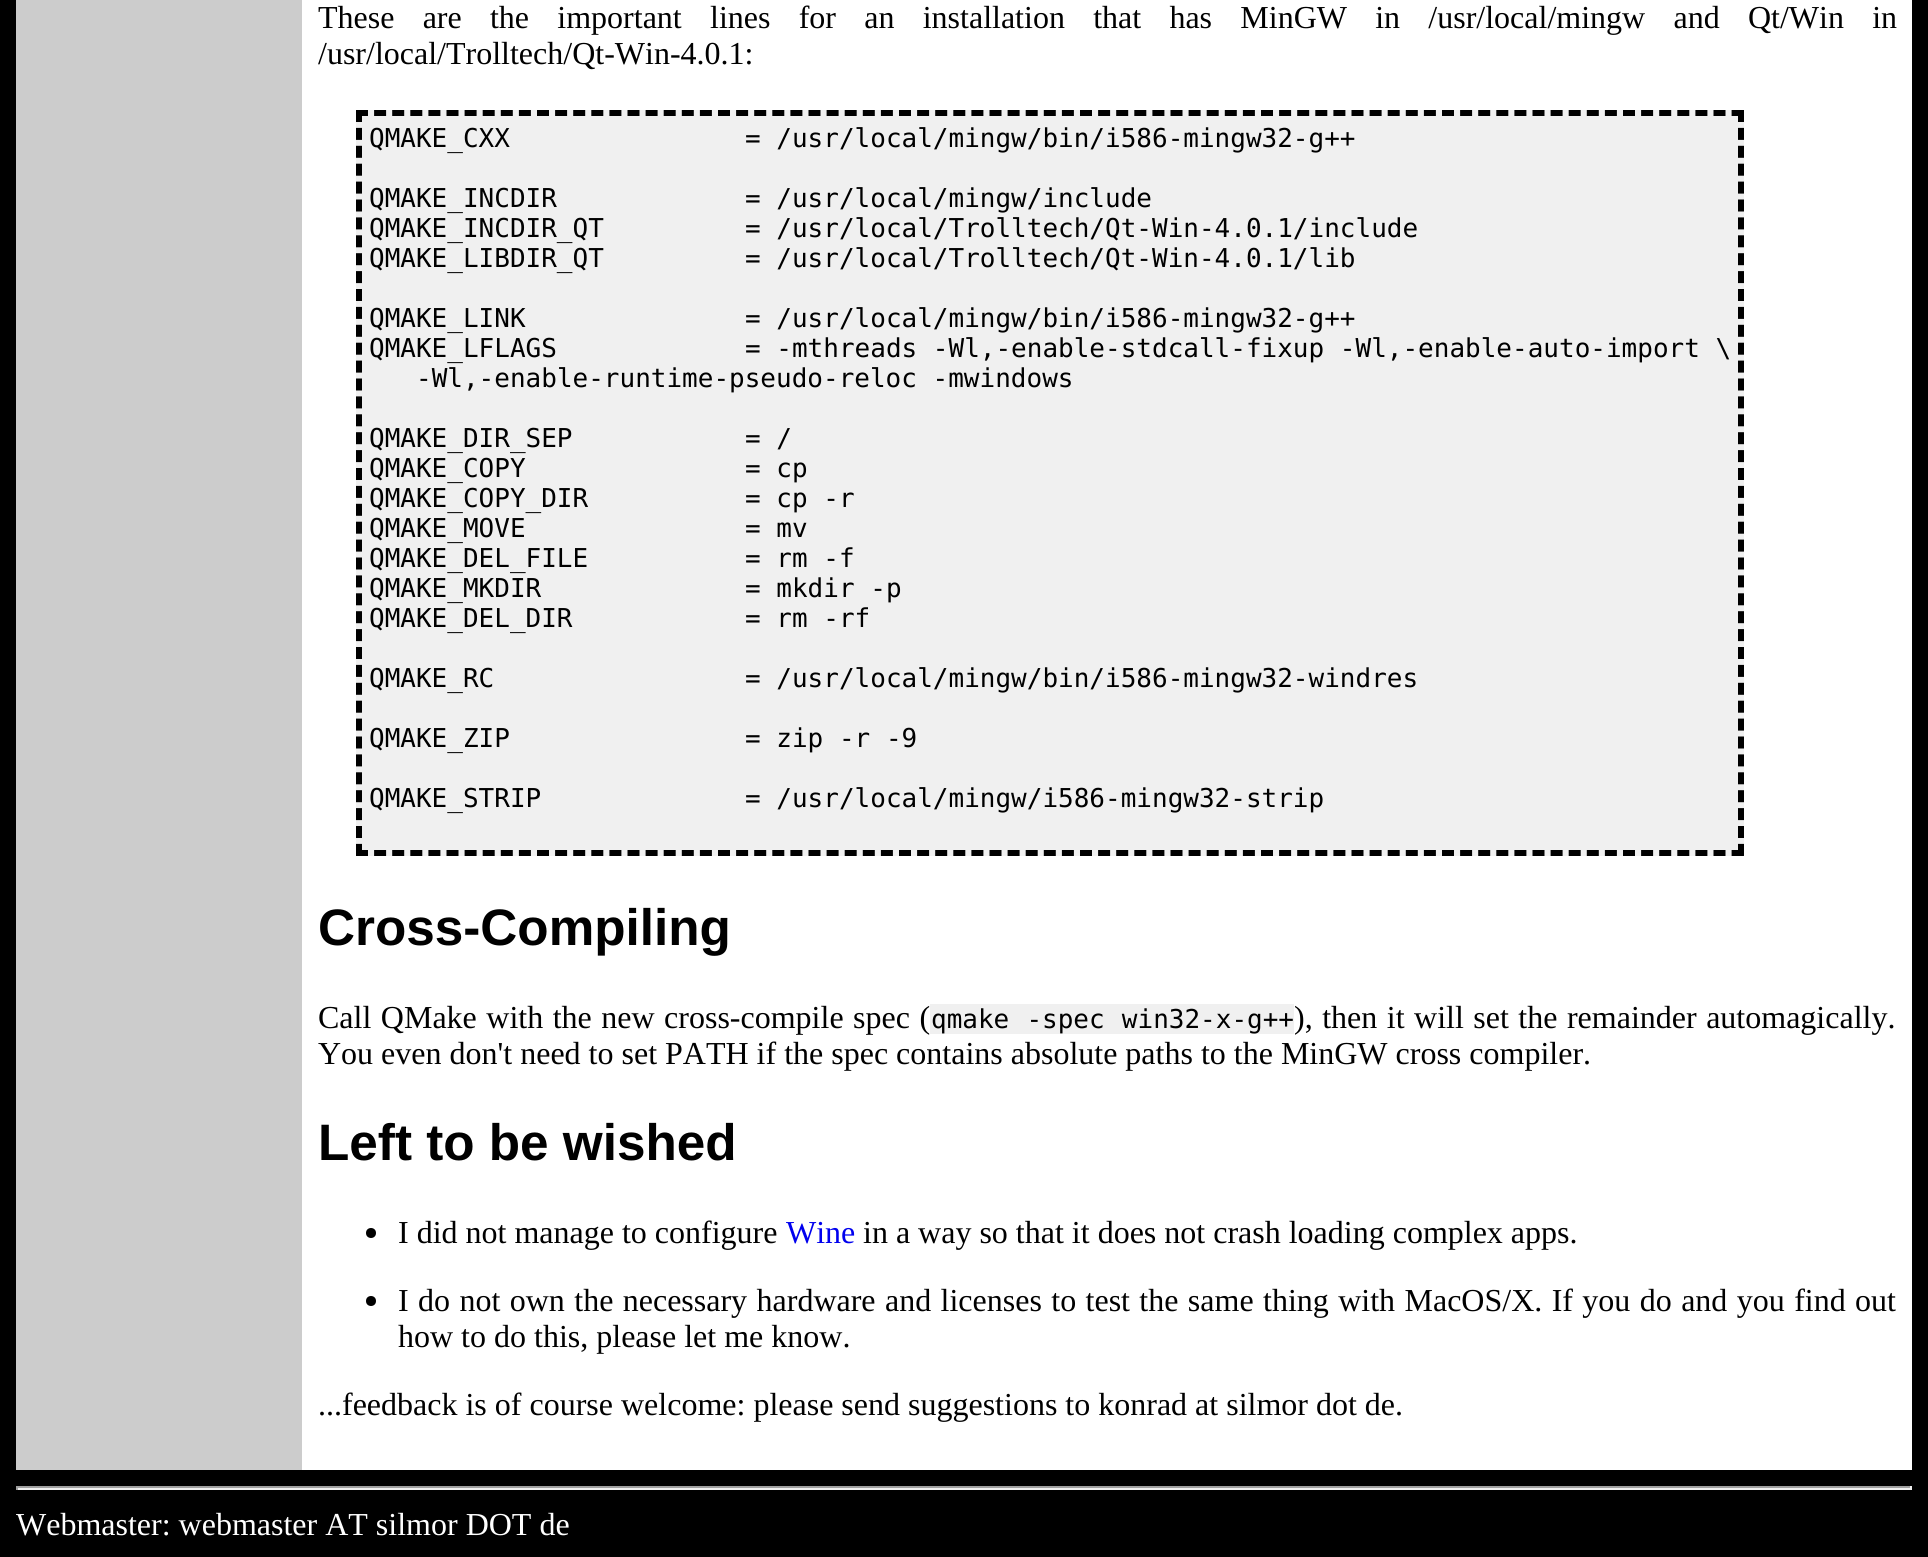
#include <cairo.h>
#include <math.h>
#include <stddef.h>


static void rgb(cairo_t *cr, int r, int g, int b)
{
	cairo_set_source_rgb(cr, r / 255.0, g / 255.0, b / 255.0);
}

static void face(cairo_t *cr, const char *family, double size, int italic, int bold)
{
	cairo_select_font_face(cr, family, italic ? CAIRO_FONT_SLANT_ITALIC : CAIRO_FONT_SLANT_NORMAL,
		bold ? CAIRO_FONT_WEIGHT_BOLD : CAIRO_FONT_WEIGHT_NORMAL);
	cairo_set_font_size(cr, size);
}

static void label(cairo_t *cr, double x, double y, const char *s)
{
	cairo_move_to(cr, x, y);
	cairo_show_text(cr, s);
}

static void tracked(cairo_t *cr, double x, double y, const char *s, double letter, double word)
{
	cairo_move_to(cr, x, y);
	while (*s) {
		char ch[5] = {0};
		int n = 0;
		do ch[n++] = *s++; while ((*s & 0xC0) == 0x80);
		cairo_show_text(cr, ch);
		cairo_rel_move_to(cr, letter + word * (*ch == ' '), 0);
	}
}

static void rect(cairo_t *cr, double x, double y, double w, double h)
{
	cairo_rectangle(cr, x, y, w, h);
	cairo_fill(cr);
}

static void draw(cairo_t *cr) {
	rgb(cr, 0, 0, 0);
	cairo_paint(cr);
	rgb(cr, 204, 204, 204);
	rect(cr, 16, 0, 286, 1470);
	rgb(cr, 255, 255, 255);
	rect(cr, 302, 0, 1610, 1470);
	face(cr, "Liberation Serif", 32, 0, 0);
	rgb(cr, 0, 0, 0);
	tracked(cr, 318, 28, "These are the important lines for an installation that has MinGW in /usr/local/mingw and Qt/Win in", 0, 20.25);
	label(cr, 318, 64, "/usr/local/Trolltech/Qt-Win-4.0.1:");
	rgb(cr, 240, 240, 240);
	rect(cr, 356, 110, 1388, 746);
	cairo_new_path(cr);
	cairo_move_to(cr, 356, 113);
	cairo_line_to(cr, 1744, 113);
	rgb(cr, 0, 0, 0);
	cairo_set_line_width(cr, 6);
	cairo_set_dash(cr, (double[]){12, 6.1}, 2, 0);
	cairo_stroke(cr);
	cairo_new_path(cr);
	cairo_move_to(cr, 1741, 110);
	cairo_line_to(cr, 1741, 856);
	cairo_set_dash(cr, (double[]){12, 5.9}, 2, 0);
	cairo_stroke(cr);
	cairo_new_path(cr);
	cairo_move_to(cr, 356, 853);
	cairo_line_to(cr, 1744, 853);
	cairo_set_dash(cr, (double[]){12, 6.1}, 2, 0);
	cairo_stroke(cr);
	cairo_new_path(cr);
	cairo_move_to(cr, 359, 110);
	cairo_line_to(cr, 359, 856);
	cairo_set_dash(cr, (double[]){12, 5.9}, 2, 0);
	cairo_stroke(cr);
	face(cr, "DejaVu Sans Mono", 26, 0, 0);
	label(cr, 369, 147, "QMAKE_CXX");
	label(cr, 745, 147, "= /usr/local/mingw/bin/i586-mingw32-g++");
	label(cr, 369, 207, "QMAKE_INCDIR");
	label(cr, 745, 207, "= /usr/local/mingw/include");
	label(cr, 369, 237, "QMAKE_INCDIR_QT");
	label(cr, 745, 237, "= /usr/local/Trolltech/Qt-Win-4.0.1/include");
	label(cr, 369, 267, "QMAKE_LIBDIR_QT");
	label(cr, 745, 267, "= /usr/local/Trolltech/Qt-Win-4.0.1/lib");
	label(cr, 369, 327, "QMAKE_LINK");
	label(cr, 745, 327, "= /usr/local/mingw/bin/i586-mingw32-g++");
	label(cr, 369, 357, "QMAKE_LFLAGS");
	label(cr, 745, 357, "= -mthreads -Wl,-enable-stdcall-fixup -Wl,-enable-auto-import \\");
	label(cr, 416, 387, "-Wl,-enable-runtime-pseudo-reloc -mwindows");
	label(cr, 369, 447, "QMAKE_DIR_SEP");
	label(cr, 745, 447, "= /");
	label(cr, 369, 477, "QMAKE_COPY");
	label(cr, 745, 477, "= cp");
	label(cr, 369, 507, "QMAKE_COPY_DIR");
	label(cr, 745, 507, "= cp -r");
	label(cr, 369, 537, "QMAKE_MOVE");
	label(cr, 745, 537, "= mv");
	label(cr, 369, 567, "QMAKE_DEL_FILE");
	label(cr, 745, 567, "= rm -f");
	label(cr, 369, 597, "QMAKE_MKDIR");
	label(cr, 745, 597, "= mkdir -p");
	label(cr, 369, 627, "QMAKE_DEL_DIR");
	label(cr, 745, 627, "= rm -rf");
	label(cr, 369, 687, "QMAKE_RC");
	label(cr, 745, 687, "= /usr/local/mingw/bin/i586-mingw32-windres");
	label(cr, 369, 747, "QMAKE_ZIP");
	label(cr, 745, 747, "= zip -r -9");
	label(cr, 369, 807, "QMAKE_STRIP");
	label(cr, 745, 807, "= /usr/local/mingw/i586-mingw32-strip");
	face(cr, "Liberation Sans", 51.25, 0, 1);
	label(cr, 318, 945, "Cross-Compiling");
	face(cr, "Liberation Serif", 32, 0, 0);
	tracked(cr, 318, 1028, "Call QMake with the new cross-compile spec (", 0, 1.5);
	rgb(cr, 240, 240, 240);
	rect(cr, 930, 1004, 364, 30);
	face(cr, "DejaVu Sans Mono", 26, 0, 0);
	rgb(cr, 0, 0, 0);
	tracked(cr, 931, 1028, "qmake -spec win32-x-g++", 0, 1.5);
	face(cr, "Liberation Serif", 32, 0, 0);
	tracked(cr, 1294, 1028, "), then it will set the remainder automagically.", 0, 1.5);
	label(cr, 318, 1064, "You even don't need to set PATH if the spec contains absolute paths to the MinGW cross compiler.");
	face(cr, "Liberation Sans", 51.25, 0, 1);
	label(cr, 318, 1160, "Left to be wished");
	cairo_new_path(cr);
	cairo_arc(cr, 371, 1233, 5, 0, 2 * M_PI);
	cairo_fill(cr);
	face(cr, "Liberation Serif", 32, 0, 0);
	label(cr, 398, 1243, "I did not manage to configure");
	rgb(cr, 0, 0, 238);
	label(cr, 786, 1243, "Wine");
	rgb(cr, 0, 0, 0);
	label(cr, 863, 1243, "in a way so that it does not crash loading complex apps.");
	cairo_new_path(cr);
	cairo_arc(cr, 371, 1301, 5, 0, 2 * M_PI);
	cairo_fill(cr);
	tracked(cr, 398, 1311, "I do not own the necessary hardware and licenses to test the same thing with MacOS/X. If you do and you find out", 0, 1.4);
	label(cr, 398, 1347, "how to do this, please let me know.");
	label(cr, 318, 1415, "...feedback is of course welcome: please send suggestions to konrad at silmor dot de.");
	rgb(cr, 159, 159, 159);
	rect(cr, 16, 1486, 1896, 2);
	rgb(cr, 238, 238, 238);
	rect(cr, 1910, 1486, 2, 4);
	rect(cr, 16, 1488, 1896, 2);
	rgb(cr, 159, 159, 159);
	rect(cr, 16, 1486, 2, 4);
	rgb(cr, 255, 255, 255);
	label(cr, 16, 1535, "Webmaster: webmaster AT silmor DOT de");
}

int main(void) {
	cairo_surface_t *surface = cairo_image_surface_create(CAIRO_FORMAT_RGB24, 1928, 1557);
	cairo_t *cr = cairo_create(surface);
	cairo_font_options_t *options = cairo_font_options_create();
	cairo_font_options_set_hint_metrics(options, CAIRO_HINT_METRICS_OFF);
	cairo_font_options_set_hint_style(options, CAIRO_HINT_STYLE_NONE);
	cairo_set_font_options(cr, options);
	cairo_set_miter_limit(cr, 4);
	draw(cr);
	cairo_surface_write_to_png(surface, "render.png");
	cairo_font_options_destroy(options);
	cairo_destroy(cr);
	cairo_surface_destroy(surface);
	return 0;
}
